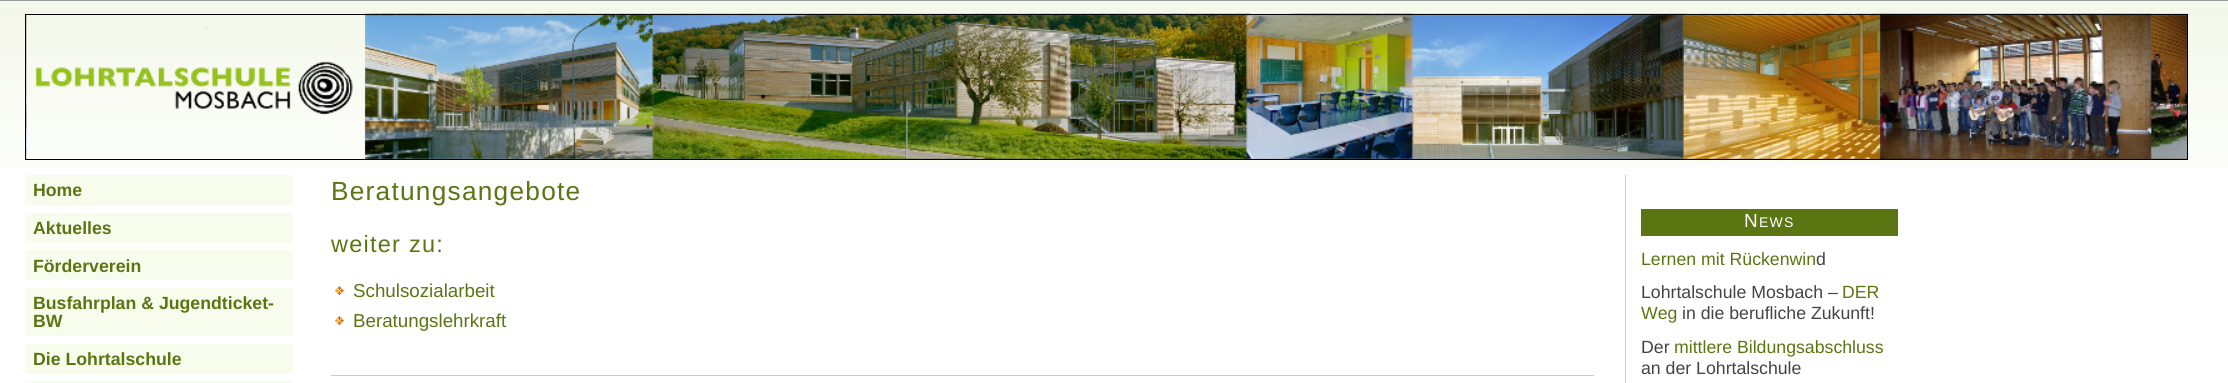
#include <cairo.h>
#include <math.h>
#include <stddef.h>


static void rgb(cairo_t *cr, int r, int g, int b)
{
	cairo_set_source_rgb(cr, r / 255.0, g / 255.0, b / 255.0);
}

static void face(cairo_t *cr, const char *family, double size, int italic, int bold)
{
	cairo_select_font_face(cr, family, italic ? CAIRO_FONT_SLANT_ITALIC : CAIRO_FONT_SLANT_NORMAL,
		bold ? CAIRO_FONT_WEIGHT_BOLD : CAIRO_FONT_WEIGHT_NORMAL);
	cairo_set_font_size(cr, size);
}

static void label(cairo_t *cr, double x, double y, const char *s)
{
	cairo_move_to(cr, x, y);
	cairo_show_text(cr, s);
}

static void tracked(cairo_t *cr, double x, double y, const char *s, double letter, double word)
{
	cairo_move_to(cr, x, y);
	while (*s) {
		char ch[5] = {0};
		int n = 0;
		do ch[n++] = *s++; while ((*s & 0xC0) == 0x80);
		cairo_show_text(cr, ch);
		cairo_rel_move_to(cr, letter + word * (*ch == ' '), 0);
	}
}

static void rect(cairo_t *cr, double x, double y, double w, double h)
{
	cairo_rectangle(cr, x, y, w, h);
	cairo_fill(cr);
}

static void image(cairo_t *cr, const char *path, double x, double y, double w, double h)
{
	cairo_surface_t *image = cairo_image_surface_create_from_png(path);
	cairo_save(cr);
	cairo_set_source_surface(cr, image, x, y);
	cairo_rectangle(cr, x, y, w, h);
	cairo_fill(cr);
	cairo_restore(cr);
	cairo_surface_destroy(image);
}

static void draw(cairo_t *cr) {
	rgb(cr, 255, 255, 255);
	cairo_paint(cr);
	image(cr, "image0.png", 0, 1, 2228, 167);
	rgb(cr, 153, 153, 153);
	rect(cr, 0, 0, 2228, 1);
	image(cr, "image1.png", 25, 13, 2163, 146);
	cairo_rectangle(cr, 25.5, 14.5, 2162, 145);
	rgb(cr, 0, 0, 0);
	cairo_set_line_width(cr, 1);
	cairo_stroke(cr);
	rgb(cr, 248, 252, 237);
	rect(cr, 25, 175, 268, 30);
	face(cr, "Liberation Sans", 17.7, 0, 1);
	rgb(cr, 91, 117, 19);
	label(cr, 33, 196, "Home");
	rgb(cr, 248, 252, 237);
	rect(cr, 25, 213, 268, 30);
	rgb(cr, 91, 117, 19);
	label(cr, 33, 234, "Aktuelles");
	rgb(cr, 248, 252, 237);
	rect(cr, 25, 250, 268, 30);
	rgb(cr, 91, 117, 19);
	label(cr, 33, 272, "Förderverein");
	rgb(cr, 248, 252, 237);
	rect(cr, 25, 288, 268, 48);
	rgb(cr, 91, 117, 19);
	label(cr, 33, 309, "Busfahrplan & Jugendticket-");
	label(cr, 33, 327, "BW");
	rgb(cr, 248, 252, 237);
	rect(cr, 25, 344, 268, 30);
	rgb(cr, 91, 117, 19);
	label(cr, 33, 365, "Die Lohrtalschule");
	rgb(cr, 248, 252, 237);
	rect(cr, 25, 381, 268, 2);
	face(cr, "Liberation Sans", 26.25, 0, 0);
	rgb(cr, 91, 117, 19);
	tracked(cr, 331, 200, "Beratungsangebote", 1.25, 0);
	face(cr, "Liberation Sans", 23.5, 0, 0);
	tracked(cr, 331, 252, "weiter zu:", 1.25, 0);
	image(cr, "image2.png", 335, 286, 9, 10);
	face(cr, "Liberation Sans", 18.75, 0, 0);
	label(cr, 353, 297, "Schulsozialarbeit");
	image(cr, "image2.png", 335, 316, 9, 10);
	label(cr, 353, 327, "Beratungslehrkraft");
	rgb(cr, 204, 204, 204);
	rect(cr, 331, 375, 1263, 1);
	rect(cr, 1625, 175, 1, 208);
	rgb(cr, 91, 117, 19);
	rect(cr, 1641, 209, 257, 27);
	face(cr, "Liberation Sans", 19, 0, 0);
	rgb(cr, 255, 255, 255);
	tracked(cr, 1744, 227, "N", 1.25, 0);
	face(cr, "Liberation Sans", 14, 0, 0);
	tracked(cr, 1759, 227, "EWS", 1.25, 0);
	face(cr, "Liberation Sans", 17.7, 0, 0);
	rgb(cr, 91, 117, 19);
	label(cr, 1641, 265, "Lernen mit Rückenwin");
	rgb(cr, 68, 68, 68);
	label(cr, 1816, 265, "d");
	label(cr, 1641, 298, "Lohrtalschule Mosbach –");
	rgb(cr, 91, 117, 19);
	label(cr, 1842, 298, "DER");
	label(cr, 1641, 319, "Weg");
	rgb(cr, 68, 68, 68);
	label(cr, 1682, 319, "in die berufliche Zukunft!");
	label(cr, 1641, 353, "Der");
	rgb(cr, 91, 117, 19);
	label(cr, 1674, 353, "mittlere Bildungsabschluss");
	rgb(cr, 68, 68, 68);
	label(cr, 1641, 374, "an der Lohrtalschule");
}

int main(void) {
	cairo_surface_t *surface = cairo_image_surface_create(CAIRO_FORMAT_RGB24, 2228, 383);
	cairo_t *cr = cairo_create(surface);
	cairo_font_options_t *options = cairo_font_options_create();
	cairo_font_options_set_hint_metrics(options, CAIRO_HINT_METRICS_OFF);
	cairo_font_options_set_hint_style(options, CAIRO_HINT_STYLE_NONE);
	cairo_set_font_options(cr, options);
	cairo_set_miter_limit(cr, 4);
	draw(cr);
	cairo_surface_write_to_png(surface, "render.png");
	cairo_font_options_destroy(options);
	cairo_destroy(cr);
	cairo_surface_destroy(surface);
	return 0;
}
